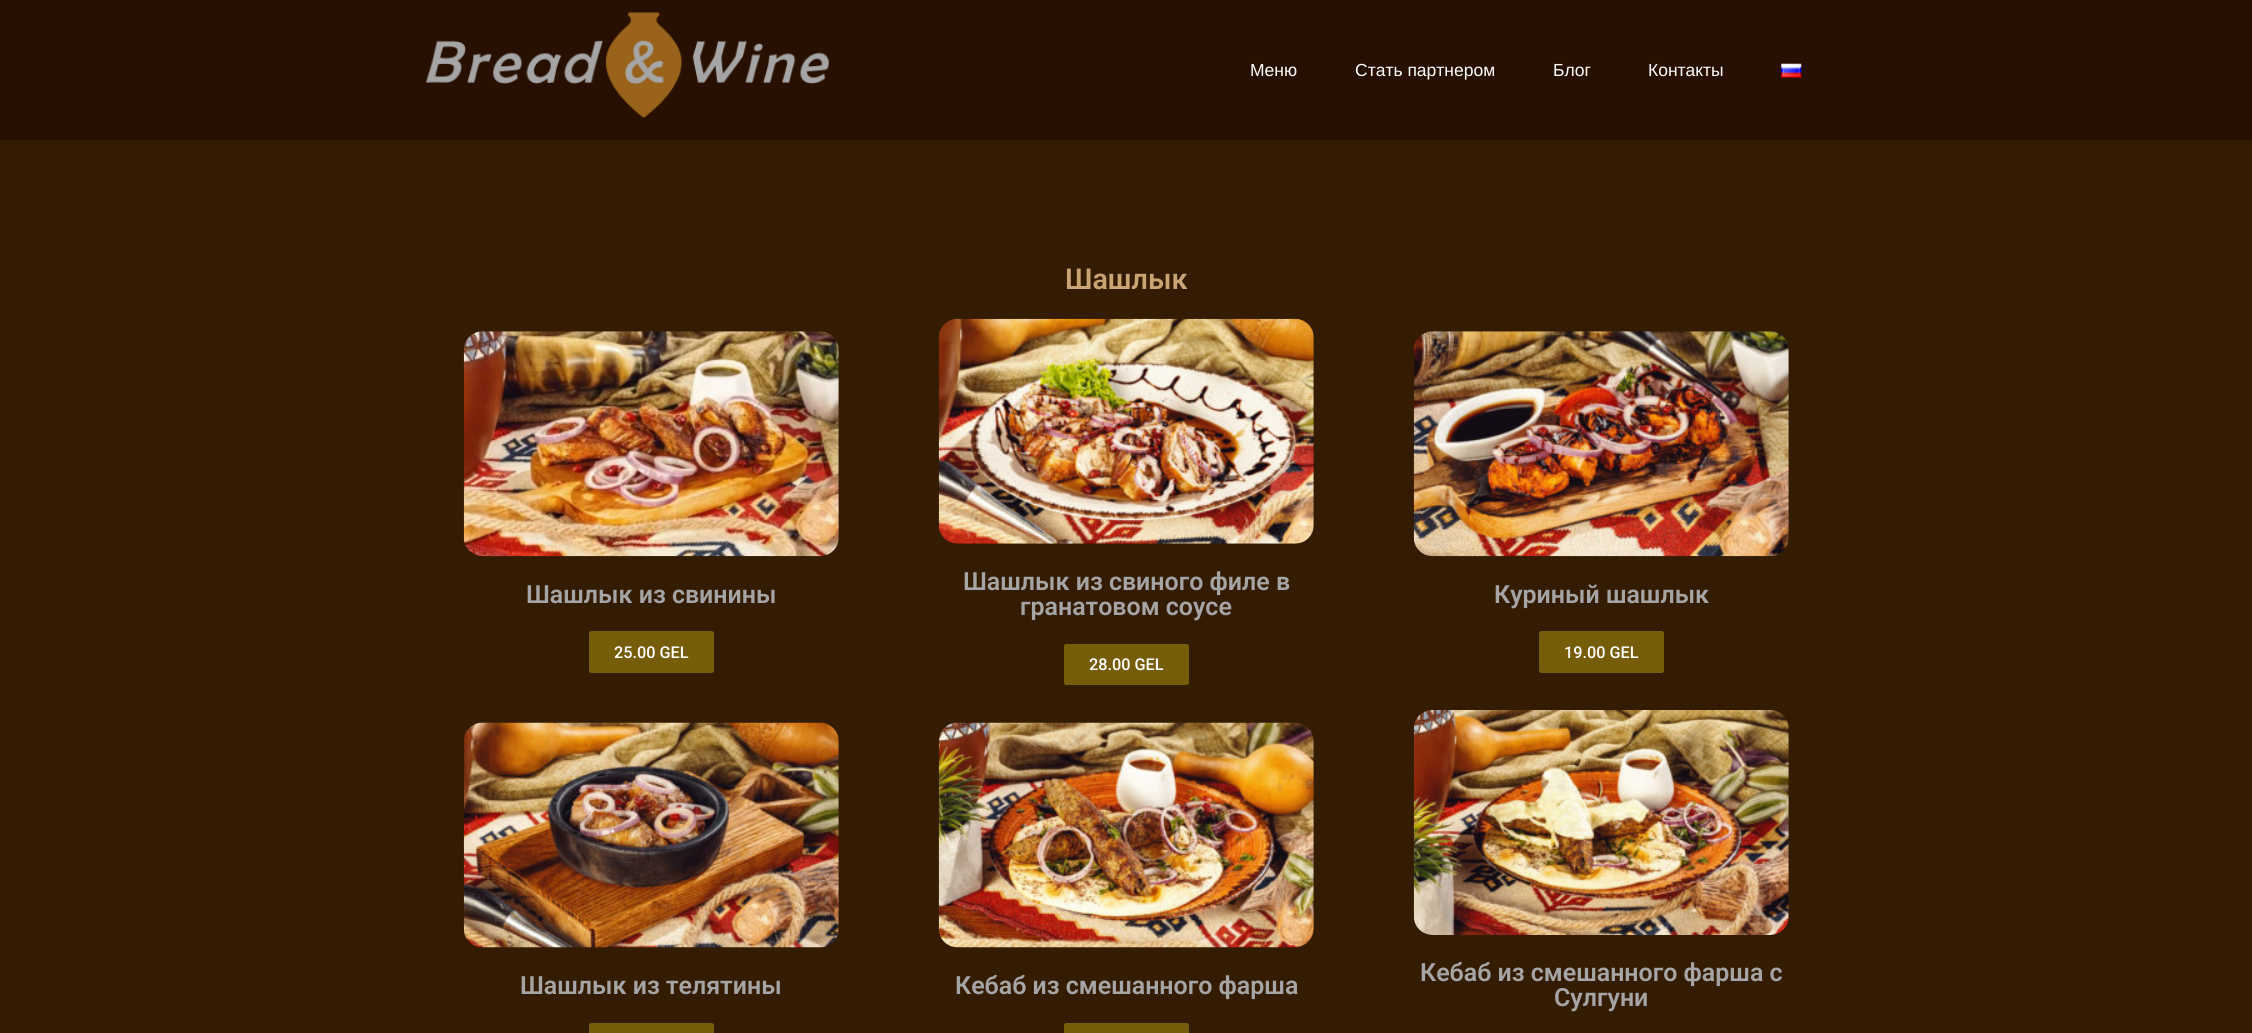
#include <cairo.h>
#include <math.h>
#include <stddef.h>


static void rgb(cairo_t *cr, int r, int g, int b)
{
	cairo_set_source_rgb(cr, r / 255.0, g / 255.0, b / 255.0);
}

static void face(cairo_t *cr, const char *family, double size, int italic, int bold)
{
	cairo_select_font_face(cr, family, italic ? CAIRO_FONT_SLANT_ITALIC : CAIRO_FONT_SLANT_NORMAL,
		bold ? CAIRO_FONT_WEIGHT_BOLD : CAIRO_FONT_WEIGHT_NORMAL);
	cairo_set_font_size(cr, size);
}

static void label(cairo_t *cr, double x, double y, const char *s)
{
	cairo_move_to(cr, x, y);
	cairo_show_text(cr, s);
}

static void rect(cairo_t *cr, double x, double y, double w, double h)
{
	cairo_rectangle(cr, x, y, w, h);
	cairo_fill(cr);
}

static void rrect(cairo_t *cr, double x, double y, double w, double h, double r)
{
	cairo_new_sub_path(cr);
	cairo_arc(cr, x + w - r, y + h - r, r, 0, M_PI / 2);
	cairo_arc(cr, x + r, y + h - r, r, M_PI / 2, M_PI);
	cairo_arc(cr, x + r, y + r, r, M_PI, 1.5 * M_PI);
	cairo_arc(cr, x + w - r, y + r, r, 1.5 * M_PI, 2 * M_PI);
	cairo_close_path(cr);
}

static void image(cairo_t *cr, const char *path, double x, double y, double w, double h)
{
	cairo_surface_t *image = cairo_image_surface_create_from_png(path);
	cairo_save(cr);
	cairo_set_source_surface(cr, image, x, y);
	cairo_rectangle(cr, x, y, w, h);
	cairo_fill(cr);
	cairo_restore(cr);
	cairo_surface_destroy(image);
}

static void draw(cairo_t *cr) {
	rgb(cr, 52, 28, 2);
	cairo_paint(cr);
	rgb(cr, 40, 16, 0);
	rect(cr, 0, 0, 2252, 140);
	image(cr, "image0.png", 426, 12, 403, 106);
	face(cr, "Liberation Sans", 17.5, 0, 0);
	rgb(cr, 255, 255, 255);
	label(cr, 1250, 76, "Меню");
	label(cr, 1355, 76, "Стать партнером");
	label(cr, 1553, 76, "Блог");
	label(cr, 1648, 76, "Контакты");
	image(cr, "image1.png", 1781, 63, 21, 15);
	face(cr, "Roboto SemiBold", 28.75, 0, 0);
	rgb(cr, 202, 164, 114);
	label(cr, 1065, 289, "Шашлык");
	image(cr, "image2.png", 463, 331, 376, 226);
	face(cr, "Roboto SemiBold", 25, 0, 0);
	rgb(cr, 165, 165, 165);
	label(cr, 526, 603, "Шашлык из свинины");
	rgb(cr, 118, 93, 10);
	rrect(cr, 589, 631, 125, 42, 2.5);
	cairo_fill(cr);
	face(cr, "Roboto Medium", 16.25, 0, 0);
	rgb(cr, 255, 255, 255);
	label(cr, 614, 658, "25.00 GEL");
	image(cr, "image3.png", 938, 318, 376, 226);
	face(cr, "Roboto SemiBold", 25, 0, 0);
	rgb(cr, 165, 165, 165);
	label(cr, 963, 590, "Шашлык из свиного филе в");
	label(cr, 1020, 615, "гранатовом соусе");
	rgb(cr, 118, 93, 10);
	rrect(cr, 1064, 644, 125, 41, 2.5);
	cairo_fill(cr);
	face(cr, "Roboto Medium", 16.25, 0, 0);
	rgb(cr, 255, 255, 255);
	label(cr, 1089, 670, "28.00 GEL");
	image(cr, "image4.png", 1413, 331, 376, 226);
	face(cr, "Roboto SemiBold", 25, 0, 0);
	rgb(cr, 165, 165, 165);
	label(cr, 1494, 603, "Куриный шашлык");
	rgb(cr, 118, 93, 10);
	rrect(cr, 1539, 631, 125, 42, 2.5);
	cairo_fill(cr);
	face(cr, "Roboto Medium", 16.25, 0, 0);
	rgb(cr, 255, 255, 255);
	label(cr, 1564, 658, "19.00 GEL");
	image(cr, "image5.png", 463, 722, 376, 226);
	face(cr, "Roboto SemiBold", 25, 0, 0);
	rgb(cr, 165, 165, 165);
	label(cr, 520, 994, "Шашлык из телятины");
	rgb(cr, 118, 93, 10);
	rrect(cr, 589, 1023, 125, 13, 2.5);
	cairo_fill(cr);
	image(cr, "image6.png", 938, 722, 376, 226);
	rgb(cr, 165, 165, 165);
	label(cr, 955, 994, "Кебаб из смешанного фарша");
	rgb(cr, 118, 93, 10);
	rrect(cr, 1064, 1023, 125, 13, 2.5);
	cairo_fill(cr);
	image(cr, "image7.png", 1413, 710, 376, 225);
	rgb(cr, 165, 165, 165);
	label(cr, 1420, 981, "Кебаб из смешанного фарша c");
	label(cr, 1554, 1006, "Сулгуни");
}

int main(void) {
	cairo_surface_t *surface = cairo_image_surface_create(CAIRO_FORMAT_RGB24, 2252, 1033);
	cairo_t *cr = cairo_create(surface);
	cairo_font_options_t *options = cairo_font_options_create();
	cairo_font_options_set_hint_metrics(options, CAIRO_HINT_METRICS_OFF);
	cairo_font_options_set_hint_style(options, CAIRO_HINT_STYLE_NONE);
	cairo_set_font_options(cr, options);
	cairo_set_miter_limit(cr, 4);
	draw(cr);
	cairo_surface_write_to_png(surface, "render.png");
	cairo_font_options_destroy(options);
	cairo_destroy(cr);
	cairo_surface_destroy(surface);
	return 0;
}
